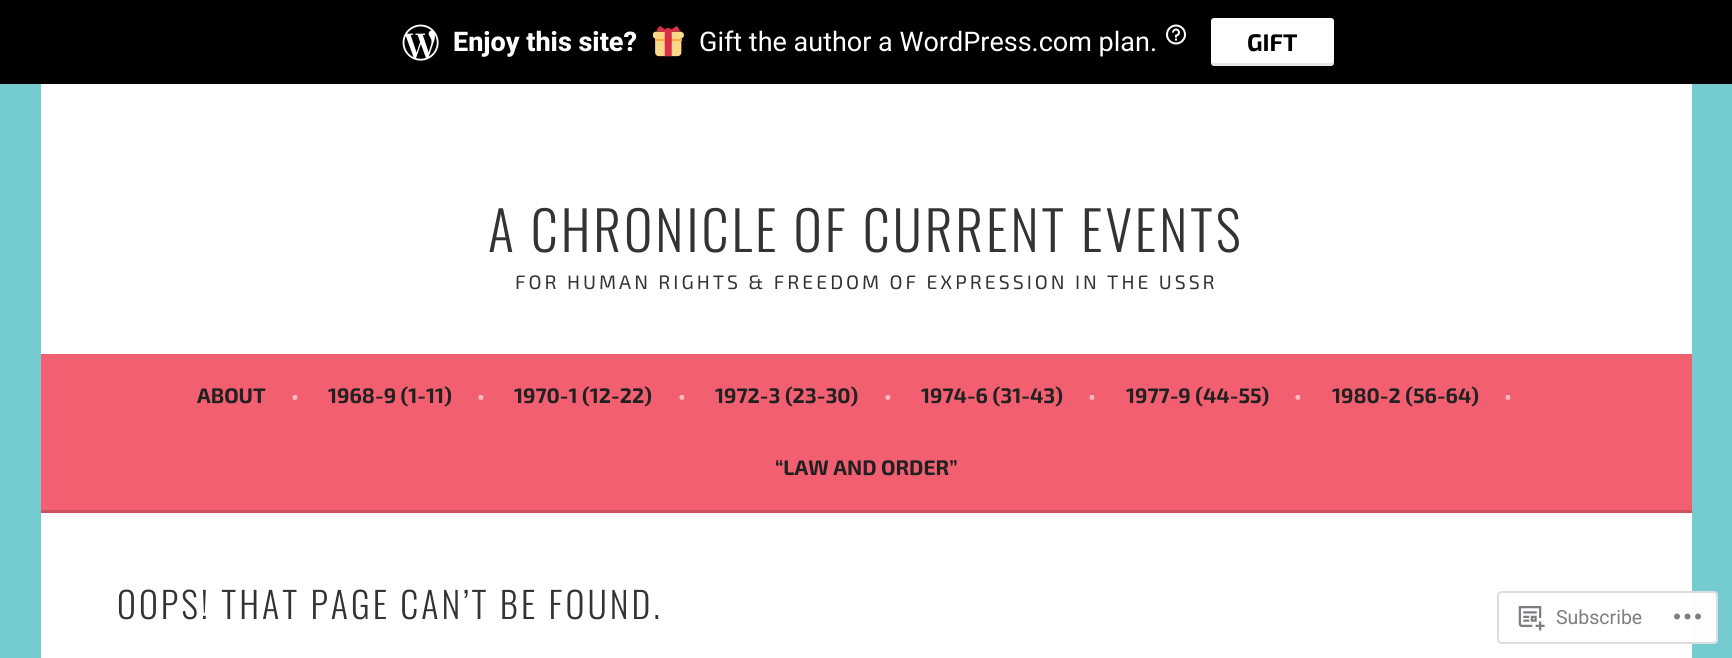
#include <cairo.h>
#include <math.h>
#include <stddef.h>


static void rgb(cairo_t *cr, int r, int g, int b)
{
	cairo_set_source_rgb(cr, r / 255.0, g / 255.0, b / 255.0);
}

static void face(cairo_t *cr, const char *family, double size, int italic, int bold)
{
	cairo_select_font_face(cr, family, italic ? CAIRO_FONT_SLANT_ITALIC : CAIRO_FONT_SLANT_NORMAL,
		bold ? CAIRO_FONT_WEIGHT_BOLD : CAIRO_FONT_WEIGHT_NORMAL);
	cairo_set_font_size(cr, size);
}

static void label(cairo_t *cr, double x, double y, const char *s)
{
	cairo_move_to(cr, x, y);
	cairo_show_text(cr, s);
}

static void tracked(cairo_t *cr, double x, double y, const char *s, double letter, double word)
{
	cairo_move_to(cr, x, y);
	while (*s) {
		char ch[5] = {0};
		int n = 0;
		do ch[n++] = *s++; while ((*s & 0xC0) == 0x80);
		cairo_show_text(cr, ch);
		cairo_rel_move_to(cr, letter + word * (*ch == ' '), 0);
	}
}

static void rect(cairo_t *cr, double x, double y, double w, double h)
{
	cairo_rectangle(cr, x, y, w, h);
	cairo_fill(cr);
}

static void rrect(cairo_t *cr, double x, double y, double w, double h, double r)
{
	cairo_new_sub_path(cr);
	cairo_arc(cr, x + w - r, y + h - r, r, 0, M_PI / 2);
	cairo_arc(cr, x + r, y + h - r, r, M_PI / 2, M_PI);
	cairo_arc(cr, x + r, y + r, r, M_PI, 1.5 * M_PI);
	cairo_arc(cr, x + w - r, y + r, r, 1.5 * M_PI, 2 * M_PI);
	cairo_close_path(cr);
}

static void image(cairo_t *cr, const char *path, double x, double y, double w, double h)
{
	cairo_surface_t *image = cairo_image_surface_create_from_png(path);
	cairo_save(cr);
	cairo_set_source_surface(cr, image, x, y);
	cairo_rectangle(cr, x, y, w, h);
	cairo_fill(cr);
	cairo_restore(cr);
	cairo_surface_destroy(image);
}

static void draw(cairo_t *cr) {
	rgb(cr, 116, 204, 209);
	cairo_paint(cr);
	rgb(cr, 0, 0, 0);
	rect(cr, 0, 0, 1732, 84);
	image(cr, "image0.png", 402, 24, 37, 37);
	face(cr, "Roboto ExtraBold", 27, 0, 0);
	rgb(cr, 255, 255, 255);
	label(cr, 453, 51, "Enjoy this site?");
	image(cr, "image1.png", 653, 26, 31, 31);
	face(cr, "Roboto", 27, 0, 0);
	label(cr, 699, 51, "Gift the author a WordPress.com plan.");
	image(cr, "image2.png", 1166, 24, 20, 21);
	rrect(cr, 1211, 18, 123, 48, 3);
	cairo_fill(cr);
	cairo_set_source_rgba(cr, 0, 0, 0, 0.1);
	cairo_new_path(cr);
	cairo_move_to(cr, 1211, 62);
	cairo_line_to(cr, 1211, 63);
	cairo_curve_to(cr, 1211, 65, 1212, 66, 1214, 66);
	cairo_line_to(cr, 1331, 66);
	cairo_curve_to(cr, 1333, 66, 1334, 65, 1334, 63);
	cairo_line_to(cr, 1334, 60);
	cairo_curve_to(cr, 1334, 62, 1332, 63, 1330, 63);
	cairo_line_to(cr, 1214, 63);
	cairo_curve_to(cr, 1213, 63, 1212, 63, 1211, 62);
	cairo_close_path(cr);
	cairo_fill(cr);
	face(cr, "Exo 2", 24, 0, 1);
	rgb(cr, 0, 0, 0);
	label(cr, 1247, 51, "GIFT");
	rgb(cr, 255, 255, 255);
	rect(cr, 41, 84, 1651, 270);
	face(cr, "Oswald Light", 54, 0, 0);
	rgb(cr, 51, 51, 51);
	tracked(cr, 488, 252, "A CHRONICLE OF CURRENT EVENTS", 3, 0);
	face(cr, "Exo 2", 19.5, 0, 0);
	tracked(cr, 515, 289, "FOR HUMAN RIGHTS & FREEDOM OF EXPRESSION IN THE USSR", 3, 0);
	rgb(cr, 242, 95, 112);
	rect(cr, 41, 354, 1651, 156);
	rgb(cr, 206, 81, 95);
	rect(cr, 41, 510, 1651, 3);
	face(cr, "Exo 2", 21, 0, 1);
	rgb(cr, 33, 33, 33);
	label(cr, 197, 403, "ABOUT");
	rgb(cr, 249, 188, 196);
	label(cr, 291, 403, "•");
	rgb(cr, 33, 33, 33);
	label(cr, 328, 403, "1968-9 (1-11)");
	rgb(cr, 249, 188, 196);
	label(cr, 477, 403, "•");
	rgb(cr, 33, 33, 33);
	label(cr, 514, 403, "1970-1 (12-22)");
	rgb(cr, 249, 188, 196);
	label(cr, 678, 403, "•");
	rgb(cr, 33, 33, 33);
	label(cr, 715, 403, "1972-3 (23-30)");
	rgb(cr, 249, 188, 196);
	label(cr, 884, 403, "•");
	rgb(cr, 33, 33, 33);
	label(cr, 921, 403, "1974-6 (31-43)");
	rgb(cr, 249, 188, 196);
	label(cr, 1088, 403, "•");
	rgb(cr, 33, 33, 33);
	label(cr, 1126, 403, "1977-9 (44-55)");
	rgb(cr, 249, 188, 196);
	label(cr, 1294, 403, "•");
	rgb(cr, 33, 33, 33);
	label(cr, 1332, 403, "1980-2 (56-64)");
	rgb(cr, 249, 188, 196);
	label(cr, 1504, 403, "•");
	rgb(cr, 33, 33, 33);
	label(cr, 775, 475, "“LAW AND ORDER”");
	rgb(cr, 255, 255, 255);
	rect(cr, 41, 513, 1651, 145);
	face(cr, "Oswald Light", 36, 0, 0);
	rgb(cr, 51, 51, 51);
	tracked(cr, 117, 619, "OOPS! THAT PAGE CAN’T BE FOUND.", 3, 0);
	cairo_set_source_rgba(cr, 1, 1, 1, 0.98);
	rrect(cr, 1497, 591, 221, 53, 5);
	cairo_fill(cr);
	rrect(cr, 1498, 592, 219, 51, 4);
	cairo_set_source_rgba(cr, 0.863, 0.863, 0.871, 0.98);
	cairo_stroke(cr);
	image(cr, "image3.png", 1518, 606, 27, 25);
	face(cr, "Roboto", 19.5, 0, 0);
	rgb(cr, 123, 127, 133);
	label(cr, 1556, 624, "Subscribe");
	image(cr, "image4.png", 1674, 613, 27, 7);
}

int main(void) {
	cairo_surface_t *surface = cairo_image_surface_create(CAIRO_FORMAT_RGB24, 1732, 658);
	cairo_t *cr = cairo_create(surface);
	cairo_font_options_t *options = cairo_font_options_create();
	cairo_font_options_set_hint_metrics(options, CAIRO_HINT_METRICS_OFF);
	cairo_font_options_set_hint_style(options, CAIRO_HINT_STYLE_NONE);
	cairo_set_font_options(cr, options);
	cairo_set_miter_limit(cr, 4);
	draw(cr);
	cairo_surface_write_to_png(surface, "render.png");
	cairo_font_options_destroy(options);
	cairo_destroy(cr);
	cairo_surface_destroy(surface);
	return 0;
}
